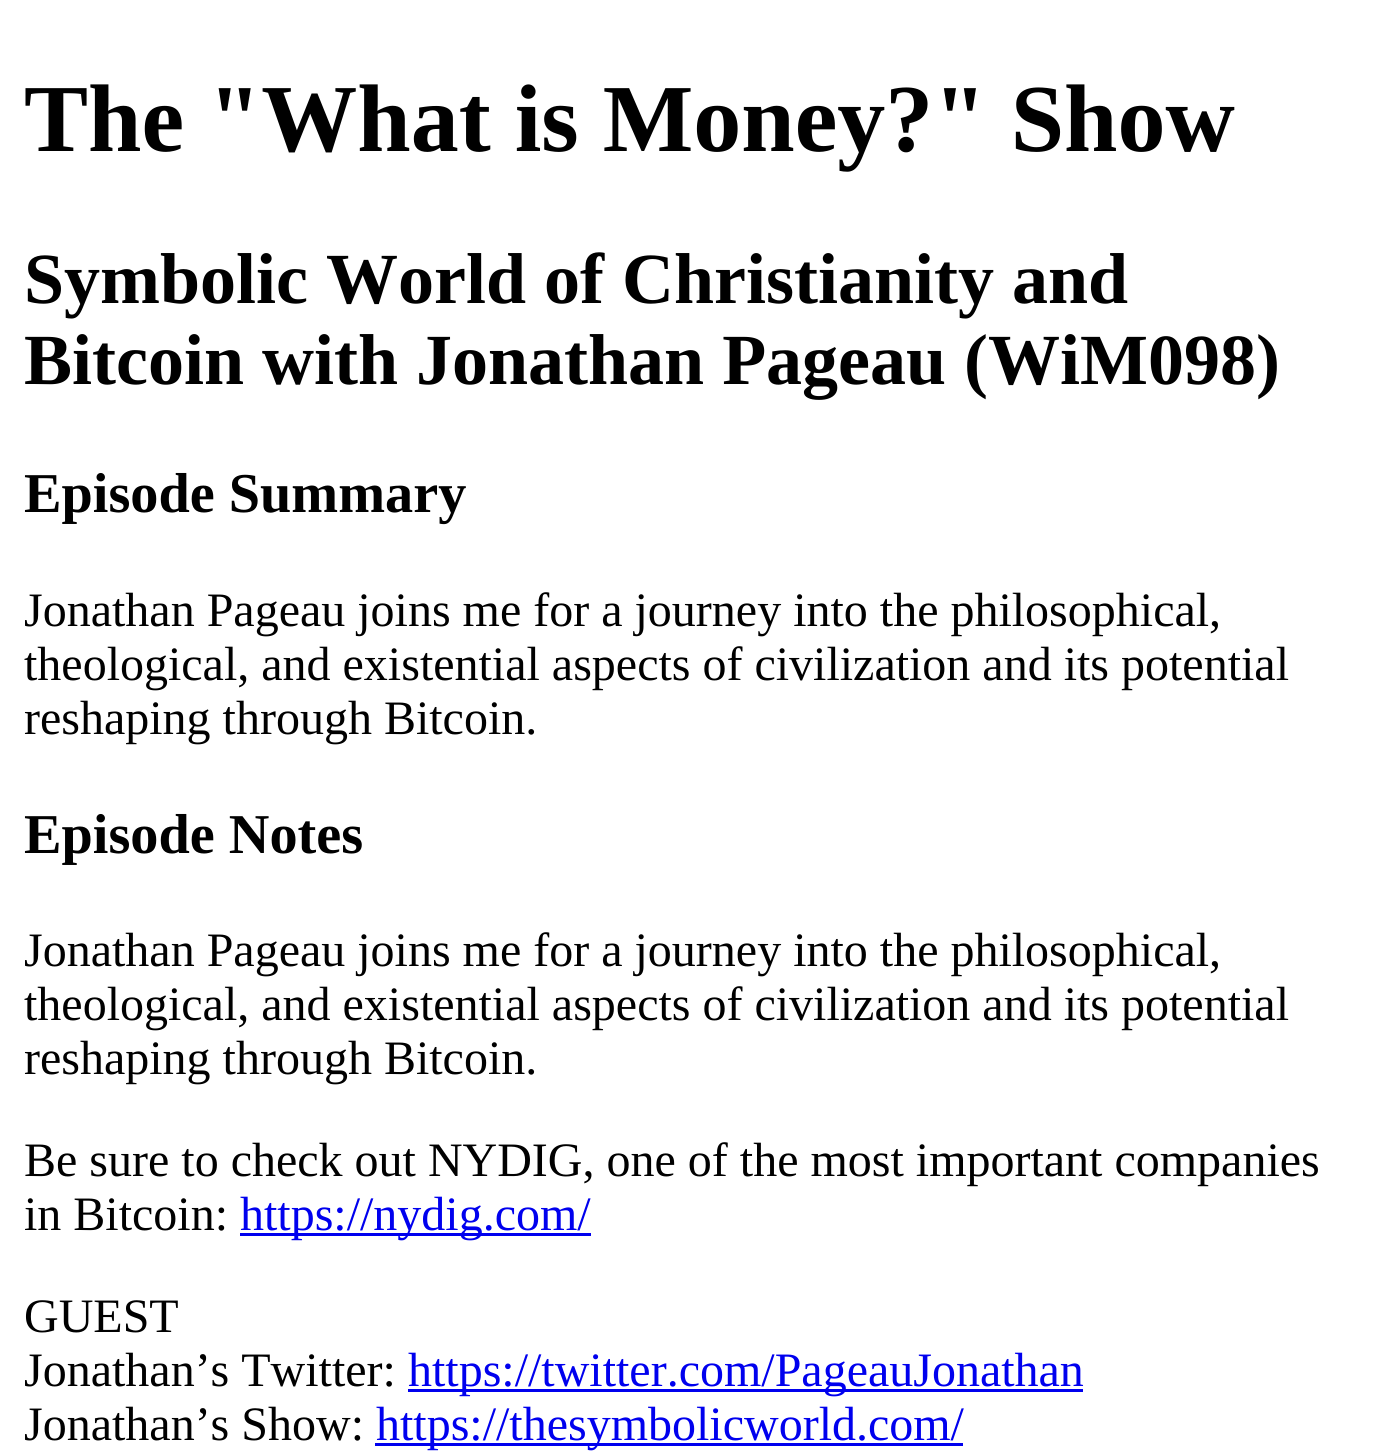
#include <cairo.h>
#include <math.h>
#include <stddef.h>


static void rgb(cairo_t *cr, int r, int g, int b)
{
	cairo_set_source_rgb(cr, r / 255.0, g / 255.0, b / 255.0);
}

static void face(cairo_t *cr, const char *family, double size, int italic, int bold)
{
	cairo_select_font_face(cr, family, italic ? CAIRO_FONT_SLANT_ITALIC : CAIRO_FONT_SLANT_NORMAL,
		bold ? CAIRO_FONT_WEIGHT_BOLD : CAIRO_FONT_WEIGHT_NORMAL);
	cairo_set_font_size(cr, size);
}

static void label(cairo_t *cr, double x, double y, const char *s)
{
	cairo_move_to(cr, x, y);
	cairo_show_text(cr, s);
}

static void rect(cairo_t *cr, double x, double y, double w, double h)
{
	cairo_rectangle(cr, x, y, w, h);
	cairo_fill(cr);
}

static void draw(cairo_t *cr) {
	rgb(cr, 255, 255, 255);
	cairo_paint(cr);
	face(cr, "Liberation Serif", 96, 0, 1);
	rgb(cr, 0, 0, 0);
	label(cr, 24, 151, "The \"What is Money?\" Show");
	face(cr, "Liberation Serif", 72, 0, 1);
	label(cr, 24, 303, "Symbolic World of Christianity and");
	label(cr, 24, 384, "Bitcoin with Jonathan Pageau (WiM098)");
	face(cr, "Liberation Serif", 56.25, 0, 1);
	label(cr, 24, 512, "Episode Summary");
	face(cr, "Liberation Serif", 48, 0, 0);
	label(cr, 24, 626, "Jonathan Pageau joins me for a journey into the philosophical,");
	label(cr, 24, 680, "theological, and existential aspects of civilization and its potential");
	label(cr, 24, 734, "reshaping through Bitcoin.");
	face(cr, "Liberation Serif", 56.25, 0, 1);
	label(cr, 24, 853, "Episode Notes");
	face(cr, "Liberation Serif", 48, 0, 0);
	label(cr, 24, 966, "Jonathan Pageau joins me for a journey into the philosophical,");
	label(cr, 24, 1020, "theological, and existential aspects of civilization and its potential");
	label(cr, 24, 1074, "reshaping through Bitcoin.");
	label(cr, 24, 1176, "Be sure to check out NYDIG, one of the most important companies");
	label(cr, 24, 1230, "in Bitcoin:");
	rgb(cr, 0, 0, 238);
	rect(cr, 240, 1233, 351, 3);
	label(cr, 240, 1230, "https://nydig.com/");
	rgb(cr, 0, 0, 0);
	label(cr, 24, 1332, "GUEST");
	label(cr, 24, 1386, "Jonathan’s Twitter:");
	rgb(cr, 0, 0, 238);
	rect(cr, 408, 1389, 675, 3);
	label(cr, 408, 1386, "https://twitter.com/PageauJonathan");
	rgb(cr, 0, 0, 0);
	label(cr, 24, 1440, "Jonathan’s Show:");
	rgb(cr, 0, 0, 238);
	rect(cr, 375, 1443, 588, 3);
	label(cr, 376, 1440, "https://thesymbolicworld.com/");
}

int main(void) {
	cairo_surface_t *surface = cairo_image_surface_create(CAIRO_FORMAT_RGB24, 1386, 1453);
	cairo_t *cr = cairo_create(surface);
	cairo_font_options_t *options = cairo_font_options_create();
	cairo_font_options_set_hint_metrics(options, CAIRO_HINT_METRICS_OFF);
	cairo_font_options_set_hint_style(options, CAIRO_HINT_STYLE_NONE);
	cairo_set_font_options(cr, options);
	cairo_set_miter_limit(cr, 4);
	draw(cr);
	cairo_surface_write_to_png(surface, "render.png");
	cairo_font_options_destroy(options);
	cairo_destroy(cr);
	cairo_surface_destroy(surface);
	return 0;
}
